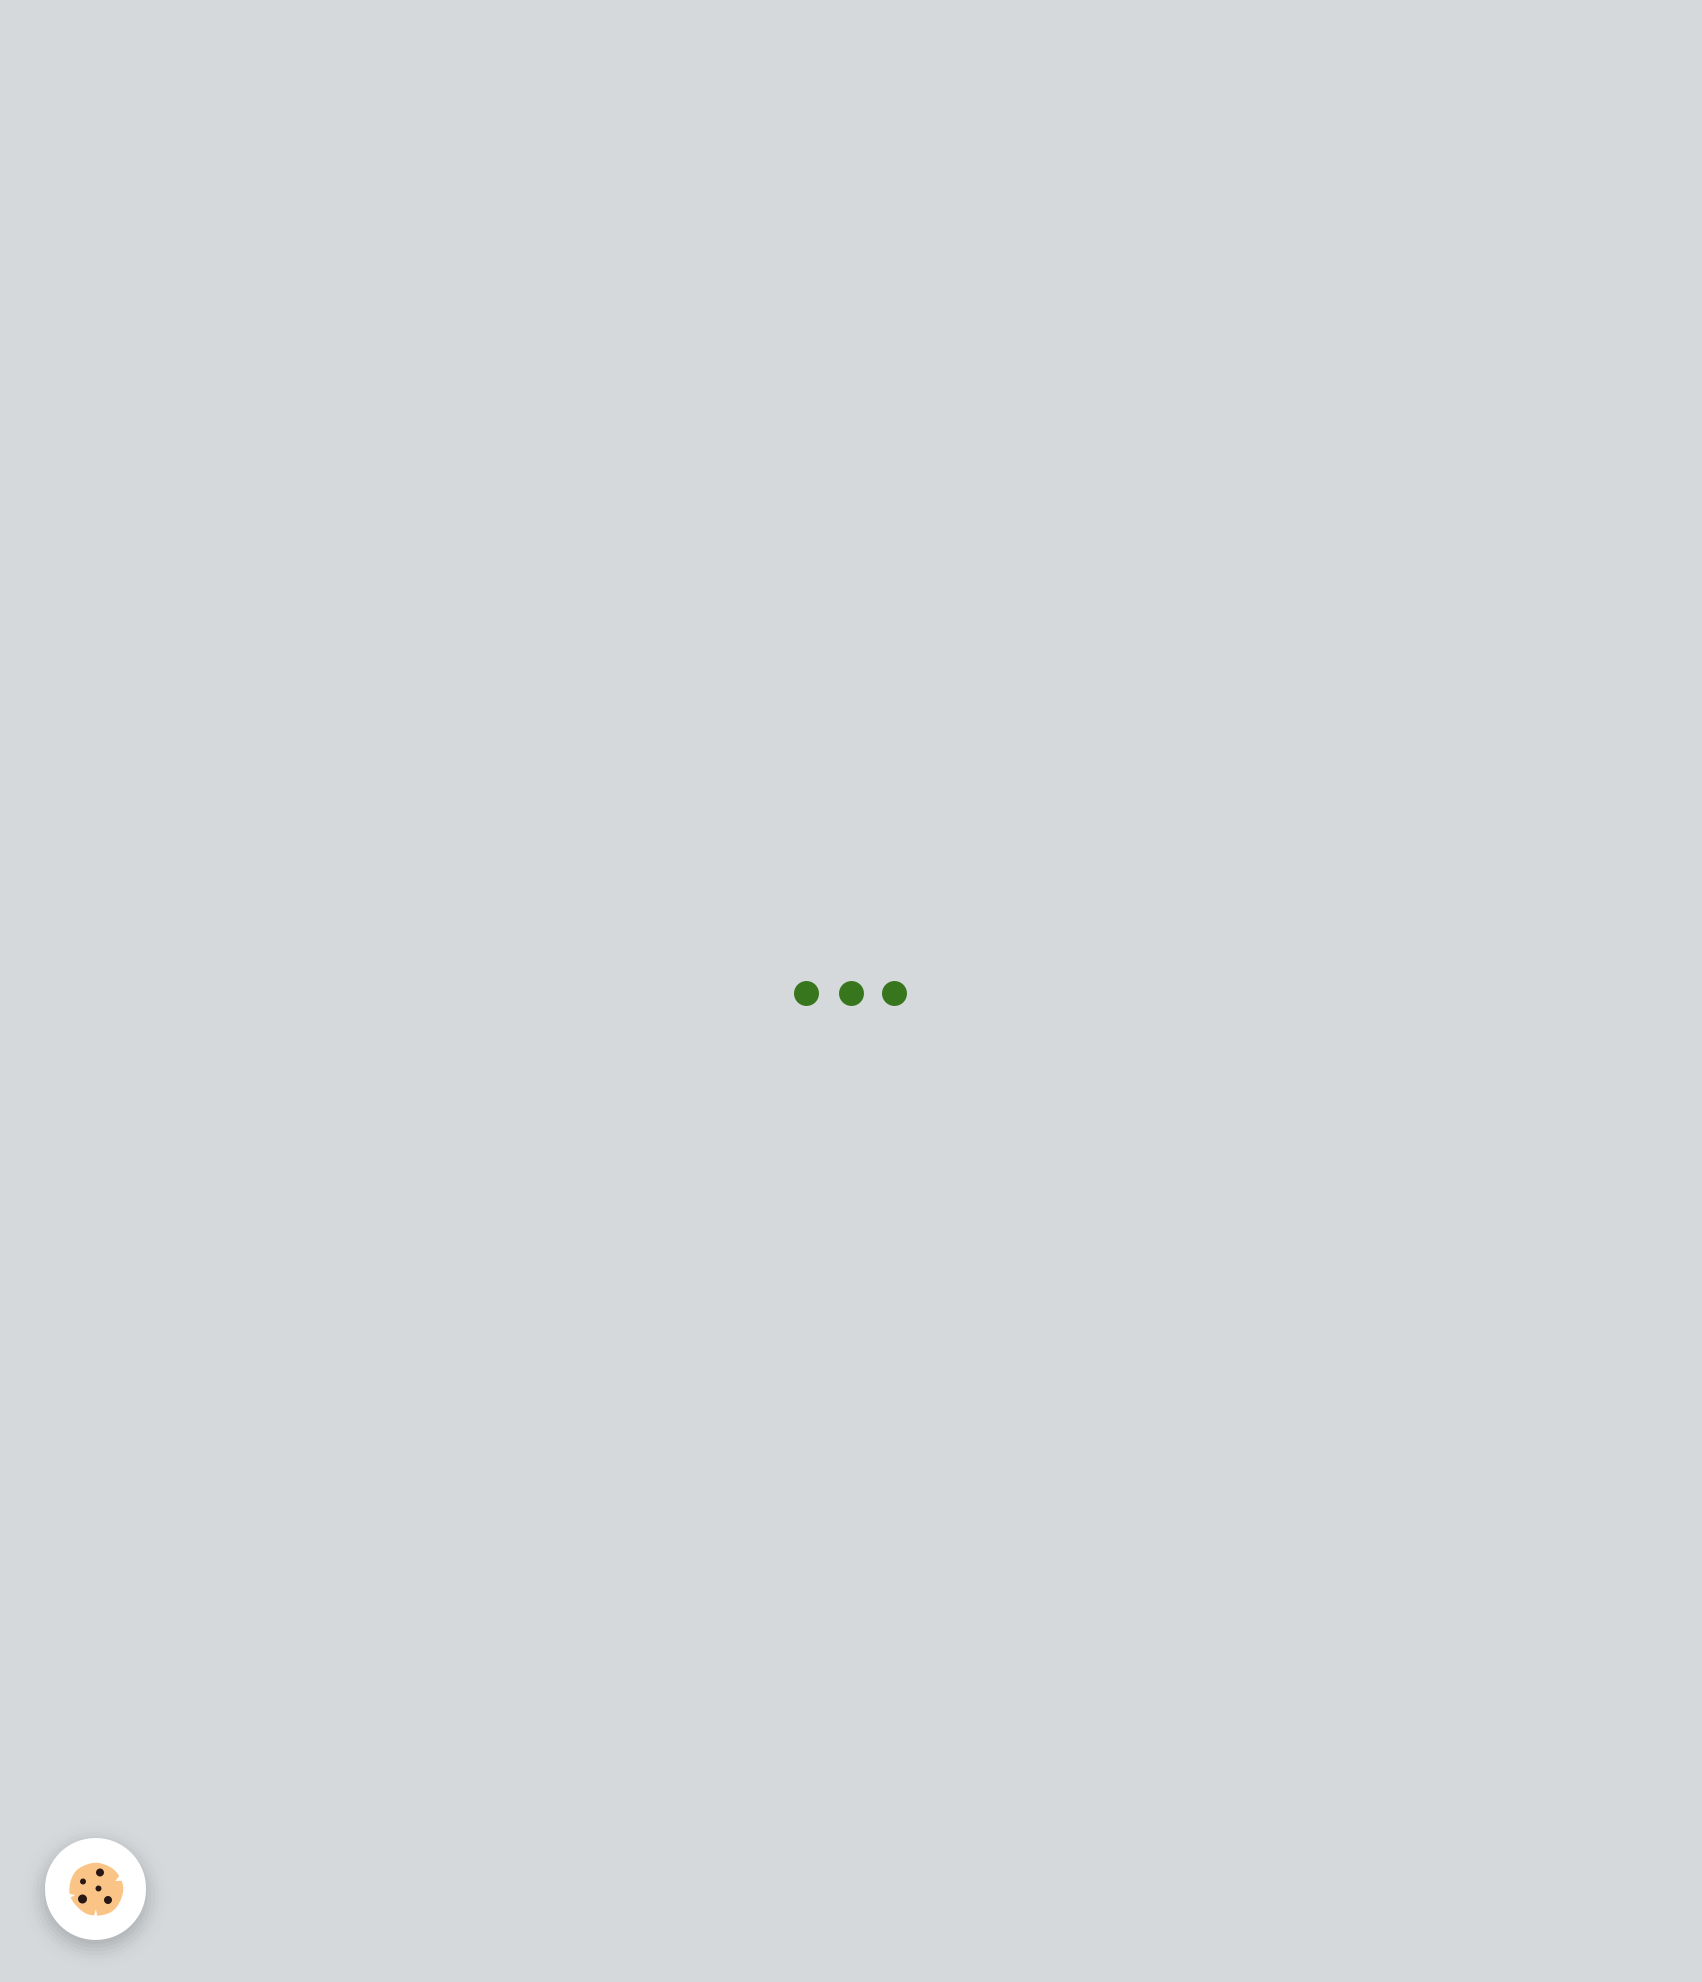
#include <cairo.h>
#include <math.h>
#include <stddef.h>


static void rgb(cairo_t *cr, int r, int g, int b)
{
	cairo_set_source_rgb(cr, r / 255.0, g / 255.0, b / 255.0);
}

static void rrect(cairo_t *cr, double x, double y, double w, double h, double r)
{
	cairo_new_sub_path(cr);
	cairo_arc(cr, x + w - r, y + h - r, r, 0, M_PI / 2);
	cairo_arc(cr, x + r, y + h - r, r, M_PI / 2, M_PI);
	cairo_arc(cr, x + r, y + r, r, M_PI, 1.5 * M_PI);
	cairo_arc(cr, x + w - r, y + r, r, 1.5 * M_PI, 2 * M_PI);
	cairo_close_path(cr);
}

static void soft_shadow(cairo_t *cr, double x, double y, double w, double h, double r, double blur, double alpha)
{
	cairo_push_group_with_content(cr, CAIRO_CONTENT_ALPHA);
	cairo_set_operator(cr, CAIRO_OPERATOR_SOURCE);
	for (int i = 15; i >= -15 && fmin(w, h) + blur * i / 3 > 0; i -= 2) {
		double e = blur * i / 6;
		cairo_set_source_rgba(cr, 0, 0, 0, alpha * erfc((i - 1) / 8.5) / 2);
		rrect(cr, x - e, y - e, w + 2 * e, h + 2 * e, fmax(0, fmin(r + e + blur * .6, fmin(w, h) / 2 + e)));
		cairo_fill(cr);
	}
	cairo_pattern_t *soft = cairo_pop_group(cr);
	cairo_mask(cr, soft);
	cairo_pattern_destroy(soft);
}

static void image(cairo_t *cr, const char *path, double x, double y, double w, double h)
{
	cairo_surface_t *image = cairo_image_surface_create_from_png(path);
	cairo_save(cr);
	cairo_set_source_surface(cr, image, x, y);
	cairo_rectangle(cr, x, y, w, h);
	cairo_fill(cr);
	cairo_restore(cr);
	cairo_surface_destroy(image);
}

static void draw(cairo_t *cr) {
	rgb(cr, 213, 217, 220);
	cairo_paint(cr);
	rgb(cr, 56, 118, 29);
	cairo_arc(cr, 806.5, 993.5, 12.5, 0, 2 * M_PI);
	cairo_fill(cr);
	cairo_arc(cr, 851.5, 993.5, 12.5, 0, 2 * M_PI);
	cairo_fill(cr);
	cairo_arc(cr, 894.5, 993.5, 12.5, 0, 2 * M_PI);
	cairo_fill(cr);
	rgb(cr, 0, 0, 0);
	soft_shadow(cr, 45, 1845, 101, 101, 50.5, 11, 0.24);
	rgb(cr, 255, 255, 255);
	rrect(cr, 45, 1838, 101, 102, 50.5);
	cairo_fill(cr);
	image(cr, "image0.png", 69, 1862, 55, 54);
}

int main(void) {
	cairo_surface_t *surface = cairo_image_surface_create(CAIRO_FORMAT_RGB24, 1702, 1982);
	cairo_t *cr = cairo_create(surface);
	cairo_font_options_t *options = cairo_font_options_create();
	cairo_font_options_set_hint_metrics(options, CAIRO_HINT_METRICS_OFF);
	cairo_font_options_set_hint_style(options, CAIRO_HINT_STYLE_NONE);
	cairo_set_font_options(cr, options);
	cairo_set_miter_limit(cr, 4);
	draw(cr);
	cairo_surface_write_to_png(surface, "render.png");
	cairo_font_options_destroy(options);
	cairo_destroy(cr);
	cairo_surface_destroy(surface);
	return 0;
}
